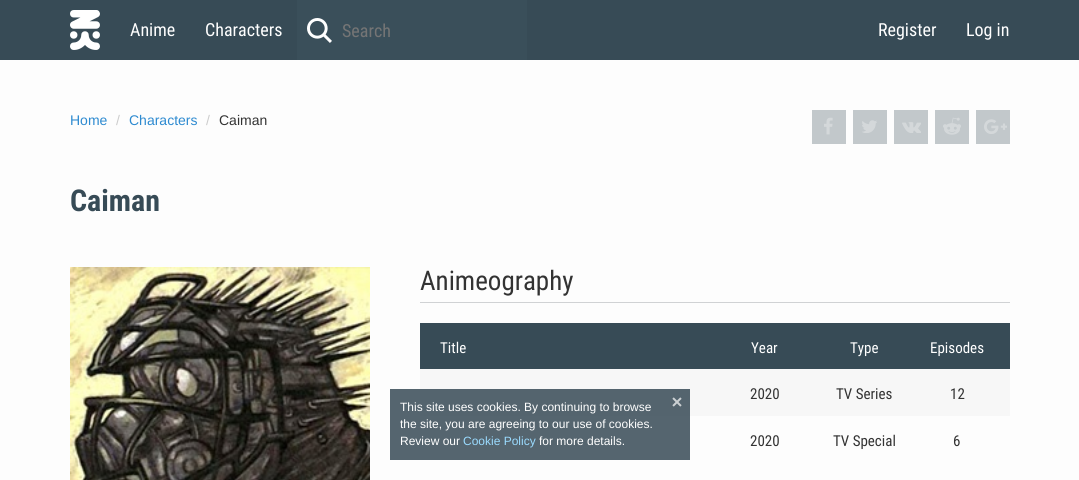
#include <cairo.h>
#include <math.h>
#include <stddef.h>


static void rgb(cairo_t *cr, int r, int g, int b)
{
	cairo_set_source_rgb(cr, r / 255.0, g / 255.0, b / 255.0);
}

static void face(cairo_t *cr, const char *family, double size, int italic, int bold)
{
	cairo_select_font_face(cr, family, italic ? CAIRO_FONT_SLANT_ITALIC : CAIRO_FONT_SLANT_NORMAL,
		bold ? CAIRO_FONT_WEIGHT_BOLD : CAIRO_FONT_WEIGHT_NORMAL);
	cairo_set_font_size(cr, size);
}

static void label(cairo_t *cr, double x, double y, const char *s)
{
	cairo_move_to(cr, x, y);
	cairo_show_text(cr, s);
}

static void rect(cairo_t *cr, double x, double y, double w, double h)
{
	cairo_rectangle(cr, x, y, w, h);
	cairo_fill(cr);
}

static void image(cairo_t *cr, const char *path, double x, double y, double w, double h)
{
	cairo_surface_t *image = cairo_image_surface_create_from_png(path);
	cairo_save(cr);
	cairo_set_source_surface(cr, image, x, y);
	cairo_rectangle(cr, x, y, w, h);
	cairo_fill(cr);
	cairo_restore(cr);
	cairo_surface_destroy(image);
}

static void draw(cairo_t *cr) {
	rgb(cr, 253, 253, 253);
	cairo_paint(cr);
	rgb(cr, 55, 75, 86);
	rect(cr, 0, 0, 1079, 60);
	image(cr, "image0.png", 70, 10, 30, 40);
	face(cr, "Roboto Condensed", 18, 0, 0);
	rgb(cr, 255, 255, 255);
	label(cr, 130, 36, "Anime");
	label(cr, 205, 36, "Characters");
	rgb(cr, 58, 79, 90);
	rect(cr, 297, 0, 230, 60);
	image(cr, "image1.png", 307, 18, 25, 25);
	rgb(cr, 117, 117, 117);
	label(cr, 342, 37, "Search");
	rgb(cr, 255, 255, 255);
	label(cr, 878, 36, "Register");
	label(cr, 966, 36, "Log in");
	face(cr, "Liberation Sans", 14, 0, 0);
	rgb(cr, 45, 138, 208);
	label(cr, 70, 125, "Home");
	rgb(cr, 204, 204, 204);
	label(cr, 116, 125, "/");
	rgb(cr, 45, 138, 208);
	label(cr, 129, 125, "Characters");
	rgb(cr, 204, 204, 204);
	label(cr, 206, 125, "/");
	rgb(cr, 51, 51, 51);
	label(cr, 219, 125, "Caiman");
	rgb(cr, 194, 200, 203);
	rect(cr, 812, 110, 34, 34);
	image(cr, "image2.png", 824, 117, 9, 18);
	rect(cr, 853, 110, 34, 34);
	image(cr, "image3.png", 862, 120, 15, 13);
	rect(cr, 894, 110, 34, 34);
	image(cr, "image4.png", 902, 122, 19, 11);
	rect(cr, 935, 110, 34, 34);
	image(cr, "image5.png", 943, 117, 18, 18);
	rect(cr, 976, 110, 34, 34);
	image(cr, "image6.png", 984, 119, 23, 15);
	face(cr, "Roboto Condensed", 30, 0, 1);
	rgb(cr, 55, 75, 86);
	label(cr, 70, 211, "Caiman");
	image(cr, "image7.png", 70, 267, 300, 213);
	rgb(cr, 208, 210, 212);
	rect(cr, 420, 302, 590, 1);
	face(cr, "Roboto Condensed", 27, 0, 0);
	rgb(cr, 51, 51, 51);
	label(cr, 420, 290, "Animeography");
	rgb(cr, 55, 75, 86);
	rect(cr, 420, 323, 590, 46);
	face(cr, "Roboto Condensed", 15, 0, 0);
	rgb(cr, 255, 255, 255);
	label(cr, 440, 353, "Title");
	label(cr, 751, 353, "Year");
	label(cr, 850, 353, "Type");
	label(cr, 930, 353, "Episodes");
	rgb(cr, 247, 247, 247);
	rect(cr, 420, 369, 590, 47);
	rgb(cr, 51, 51, 51);
	label(cr, 750, 399, "2020");
	label(cr, 836, 399, "TV Series");
	label(cr, 950, 399, "12");
	label(cr, 750, 446, "2020");
	label(cr, 833, 446, "TV Special");
	label(cr, 953, 446, "6");
	cairo_set_source_rgba(cr, 0.216, 0.294, 0.337, 0.85);
	rect(cr, 390, 389, 300, 71);
	face(cr, "Liberation Sans", 12, 0, 0);
	rgb(cr, 255, 255, 255);
	label(cr, 400, 411, "This site uses cookies. By continuing to browse");
	image(cr, "image8.png", 672, 397, 10, 10);
	label(cr, 400, 428, "the site, you are agreeing to our use of cookies.");
	label(cr, 400, 445, "Review our");
	rgb(cr, 154, 219, 255);
	label(cr, 463, 445, "Cookie Policy");
	rgb(cr, 255, 255, 255);
	label(cr, 539, 445, "for more details.");
}

int main(void) {
	cairo_surface_t *surface = cairo_image_surface_create(CAIRO_FORMAT_RGB24, 1079, 480);
	cairo_t *cr = cairo_create(surface);
	cairo_font_options_t *options = cairo_font_options_create();
	cairo_font_options_set_hint_metrics(options, CAIRO_HINT_METRICS_OFF);
	cairo_font_options_set_hint_style(options, CAIRO_HINT_STYLE_NONE);
	cairo_set_font_options(cr, options);
	cairo_set_miter_limit(cr, 4);
	draw(cr);
	cairo_surface_write_to_png(surface, "render.png");
	cairo_font_options_destroy(options);
	cairo_destroy(cr);
	cairo_surface_destroy(surface);
	return 0;
}
